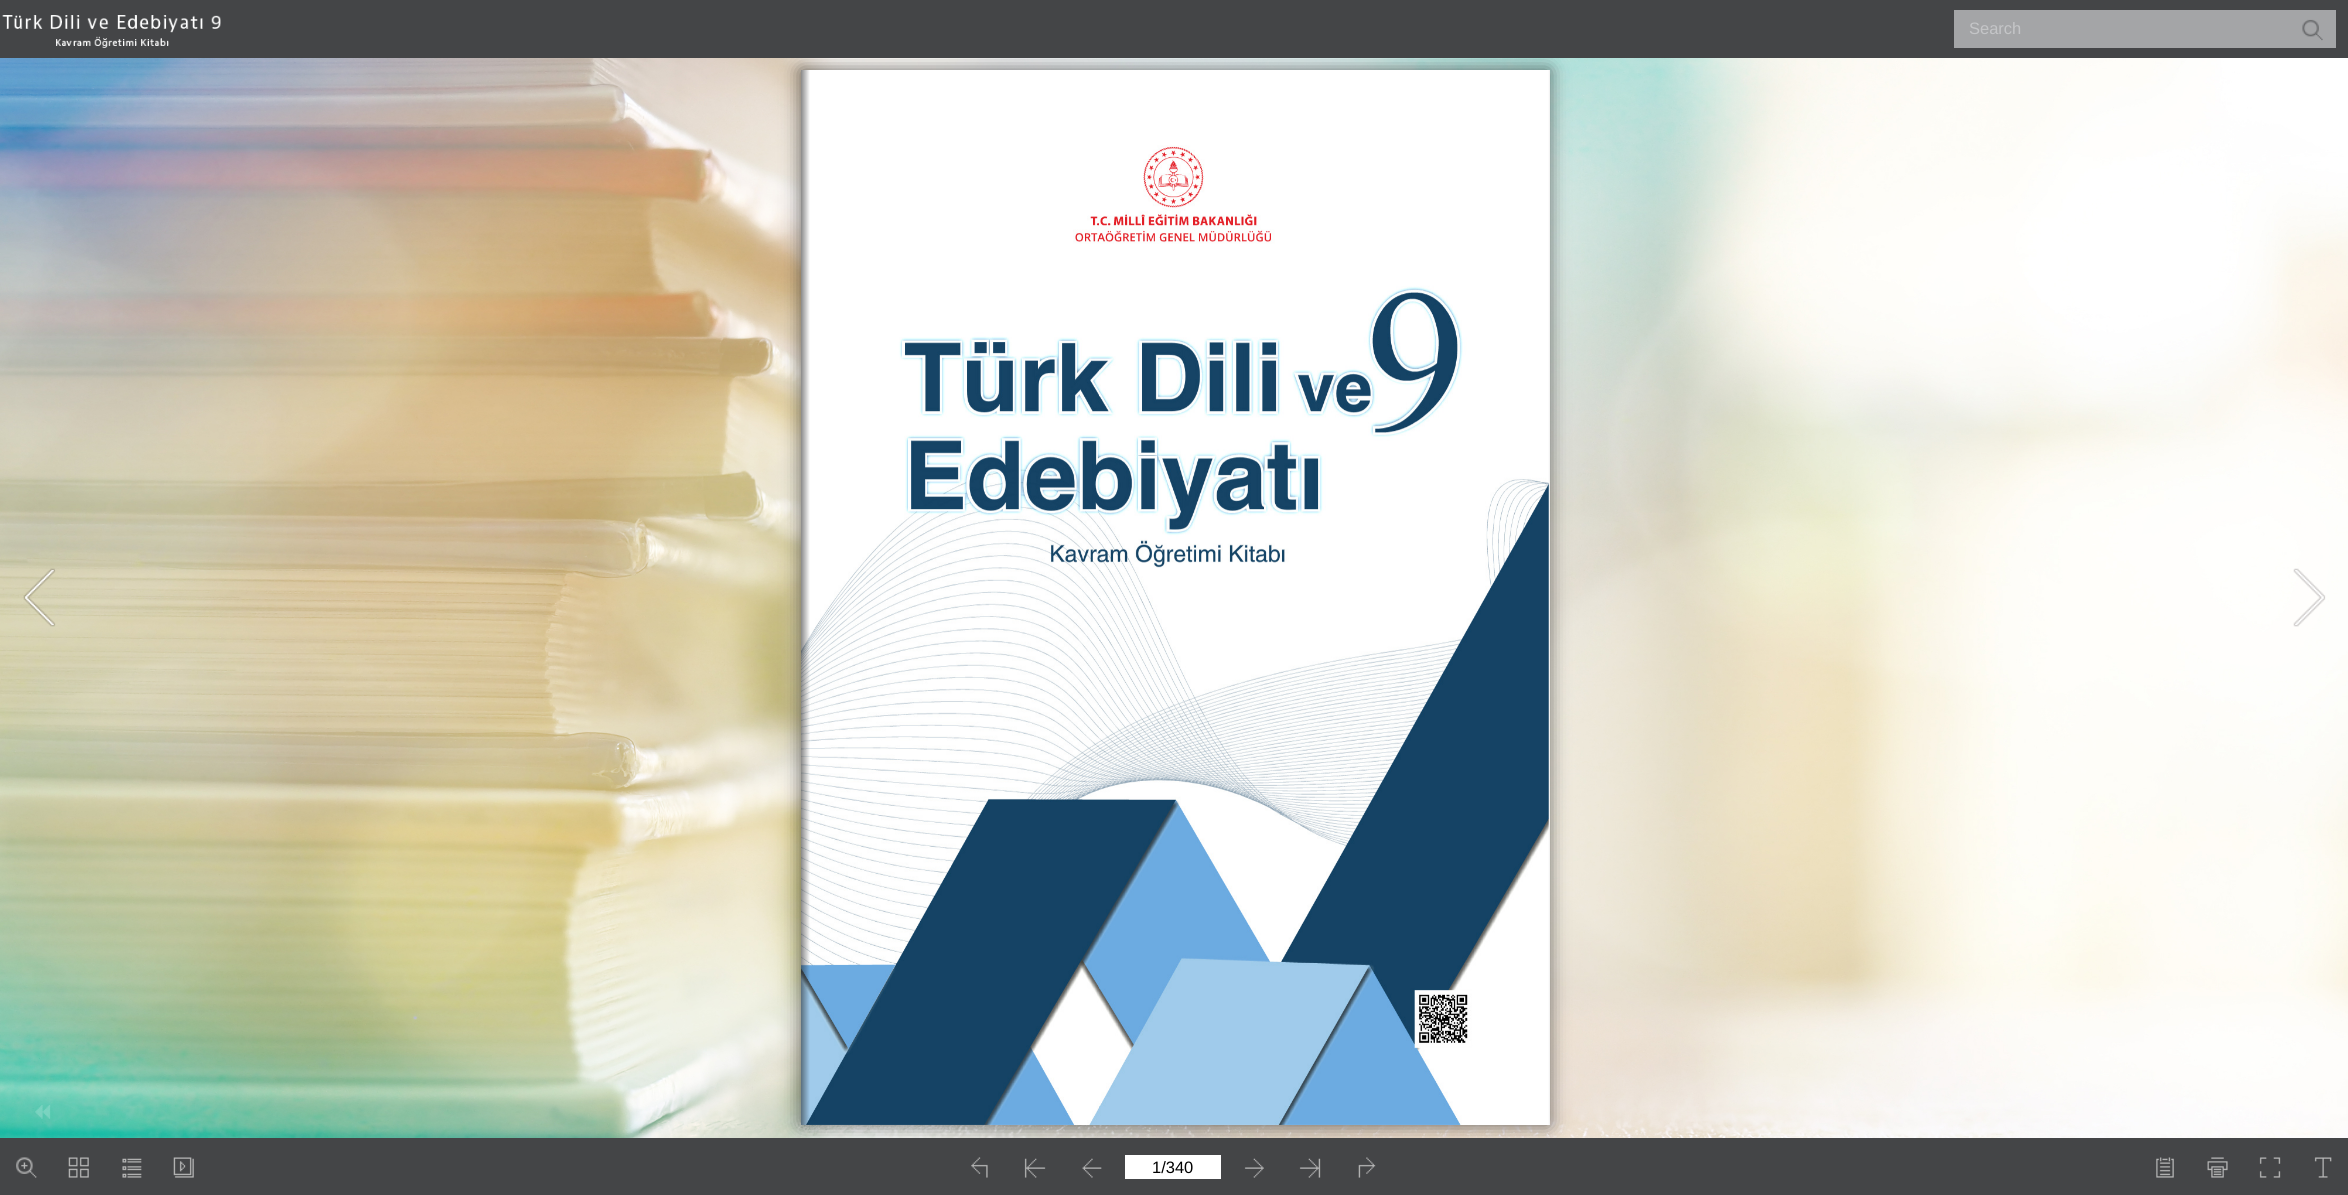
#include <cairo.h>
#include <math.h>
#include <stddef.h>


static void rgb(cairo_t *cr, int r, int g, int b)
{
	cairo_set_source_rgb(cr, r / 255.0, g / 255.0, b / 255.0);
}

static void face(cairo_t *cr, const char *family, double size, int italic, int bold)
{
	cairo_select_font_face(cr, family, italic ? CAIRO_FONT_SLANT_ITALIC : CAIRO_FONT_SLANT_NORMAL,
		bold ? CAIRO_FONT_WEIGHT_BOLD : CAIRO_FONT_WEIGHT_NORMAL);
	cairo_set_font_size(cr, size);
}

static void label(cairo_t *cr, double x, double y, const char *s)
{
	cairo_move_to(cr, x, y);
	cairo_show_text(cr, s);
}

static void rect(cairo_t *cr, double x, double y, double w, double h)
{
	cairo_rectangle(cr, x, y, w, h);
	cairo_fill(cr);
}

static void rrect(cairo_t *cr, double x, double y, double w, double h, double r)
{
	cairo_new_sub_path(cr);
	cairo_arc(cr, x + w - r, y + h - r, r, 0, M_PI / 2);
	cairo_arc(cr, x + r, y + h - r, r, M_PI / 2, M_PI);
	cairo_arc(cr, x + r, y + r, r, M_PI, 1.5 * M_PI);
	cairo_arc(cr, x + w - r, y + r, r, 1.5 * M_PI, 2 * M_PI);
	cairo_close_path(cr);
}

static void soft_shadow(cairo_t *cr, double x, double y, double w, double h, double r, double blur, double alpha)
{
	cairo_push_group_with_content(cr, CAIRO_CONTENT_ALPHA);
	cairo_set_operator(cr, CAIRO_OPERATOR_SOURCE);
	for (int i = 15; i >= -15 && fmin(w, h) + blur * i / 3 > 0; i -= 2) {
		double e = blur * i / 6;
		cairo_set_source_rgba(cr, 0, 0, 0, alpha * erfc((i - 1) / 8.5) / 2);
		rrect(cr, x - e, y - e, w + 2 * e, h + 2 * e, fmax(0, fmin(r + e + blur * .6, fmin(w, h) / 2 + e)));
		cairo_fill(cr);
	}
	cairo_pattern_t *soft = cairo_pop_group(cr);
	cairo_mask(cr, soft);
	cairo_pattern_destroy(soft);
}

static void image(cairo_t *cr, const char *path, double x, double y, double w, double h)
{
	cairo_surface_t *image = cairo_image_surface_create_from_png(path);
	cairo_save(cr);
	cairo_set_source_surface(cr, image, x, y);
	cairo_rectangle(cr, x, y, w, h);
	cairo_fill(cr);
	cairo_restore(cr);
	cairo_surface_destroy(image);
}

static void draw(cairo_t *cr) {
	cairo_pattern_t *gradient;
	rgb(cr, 255, 255, 255);
	cairo_paint(cr);
	image(cr, "image5.png", 0, 58, 2348, 1080);
	rgb(cr, 40, 40, 40);
	soft_shadow(cr, 801, 70, 748, 1055, 0, 9.5, 0.7);
	rgb(cr, 68, 69, 71);
	rect(cr, 0, 0, 2348, 58);
	image(cr, "image0.png", 2, 15, 219, 33);
	rgb(cr, 164, 165, 167);
	rect(cr, 1954, 10, 382, 38);
	face(cr, "Liberation Sans", 16.5, 0, 0);
	rgb(cr, 196, 197, 199);
	label(cr, 1969, 34, "Search");
	image(cr, "image1.png", 2302, 19, 21, 22);
	image(cr, "image4.png", 801, 1124, 748, 1);
	image(cr, "image2.png", 801, 70, 748, 1055);
	gradient = cairo_pattern_create_linear(801, 598, 810, 598);
	cairo_pattern_add_color_stop_rgba(gradient, 0, 0.078, 0.078, 0.078, 0.5);
	cairo_pattern_add_color_stop_rgba(gradient, 1, 0.078, 0.078, 0.078, 0);
	cairo_set_source(cr, gradient);
	cairo_pattern_destroy(gradient);
	rect(cr, 801, 70, 9, 1055);
	image(cr, "image3.png", 1548, 70, 2, 1055);
	image(cr, "image6.png", 23, 568, 33, 59);
	image(cr, "image7.png", 2293, 568, 33, 59);
	image(cr, "image8.png", 35, 1105, 16, 14);
	rgb(cr, 68, 69, 71);
	rect(cr, 0, 1138, 2348, 57);
	image(cr, "image9.png", 16, 1157, 21, 21);
	image(cr, "image10.png", 68, 1157, 21, 21);
	image(cr, "image11.png", 122, 1158, 20, 20);
	image(cr, "image12.png", 173, 1157, 21, 21);
	image(cr, "image13.png", 971, 1157, 17, 21);
	image(cr, "image14.png", 1024, 1158, 22, 20);
	image(cr, "image15.png", 1082, 1158, 20, 20);
	rgb(cr, 255, 255, 255);
	rect(cr, 1125, 1155, 96, 24);
	rgb(cr, 0, 0, 0);
	label(cr, 1152, 1173, "1/340");
	image(cr, "image16.png", 1244, 1158, 20, 20);
	image(cr, "image17.png", 1299, 1158, 22, 20);
	image(cr, "image18.png", 1358, 1157, 18, 21);
	image(cr, "image19.png", 2156, 1157, 18, 21);
	image(cr, "image20.png", 2207, 1157, 21, 21);
	image(cr, "image21.png", 2259, 1157, 22, 21);
	image(cr, "image22.png", 2314, 1157, 18, 21);
}

int main(void) {
	cairo_surface_t *surface = cairo_image_surface_create(CAIRO_FORMAT_RGB24, 2348, 1195);
	cairo_t *cr = cairo_create(surface);
	cairo_font_options_t *options = cairo_font_options_create();
	cairo_font_options_set_hint_metrics(options, CAIRO_HINT_METRICS_OFF);
	cairo_font_options_set_hint_style(options, CAIRO_HINT_STYLE_NONE);
	cairo_set_font_options(cr, options);
	cairo_set_miter_limit(cr, 4);
	draw(cr);
	cairo_surface_write_to_png(surface, "render.png");
	cairo_font_options_destroy(options);
	cairo_destroy(cr);
	cairo_surface_destroy(surface);
	return 0;
}
